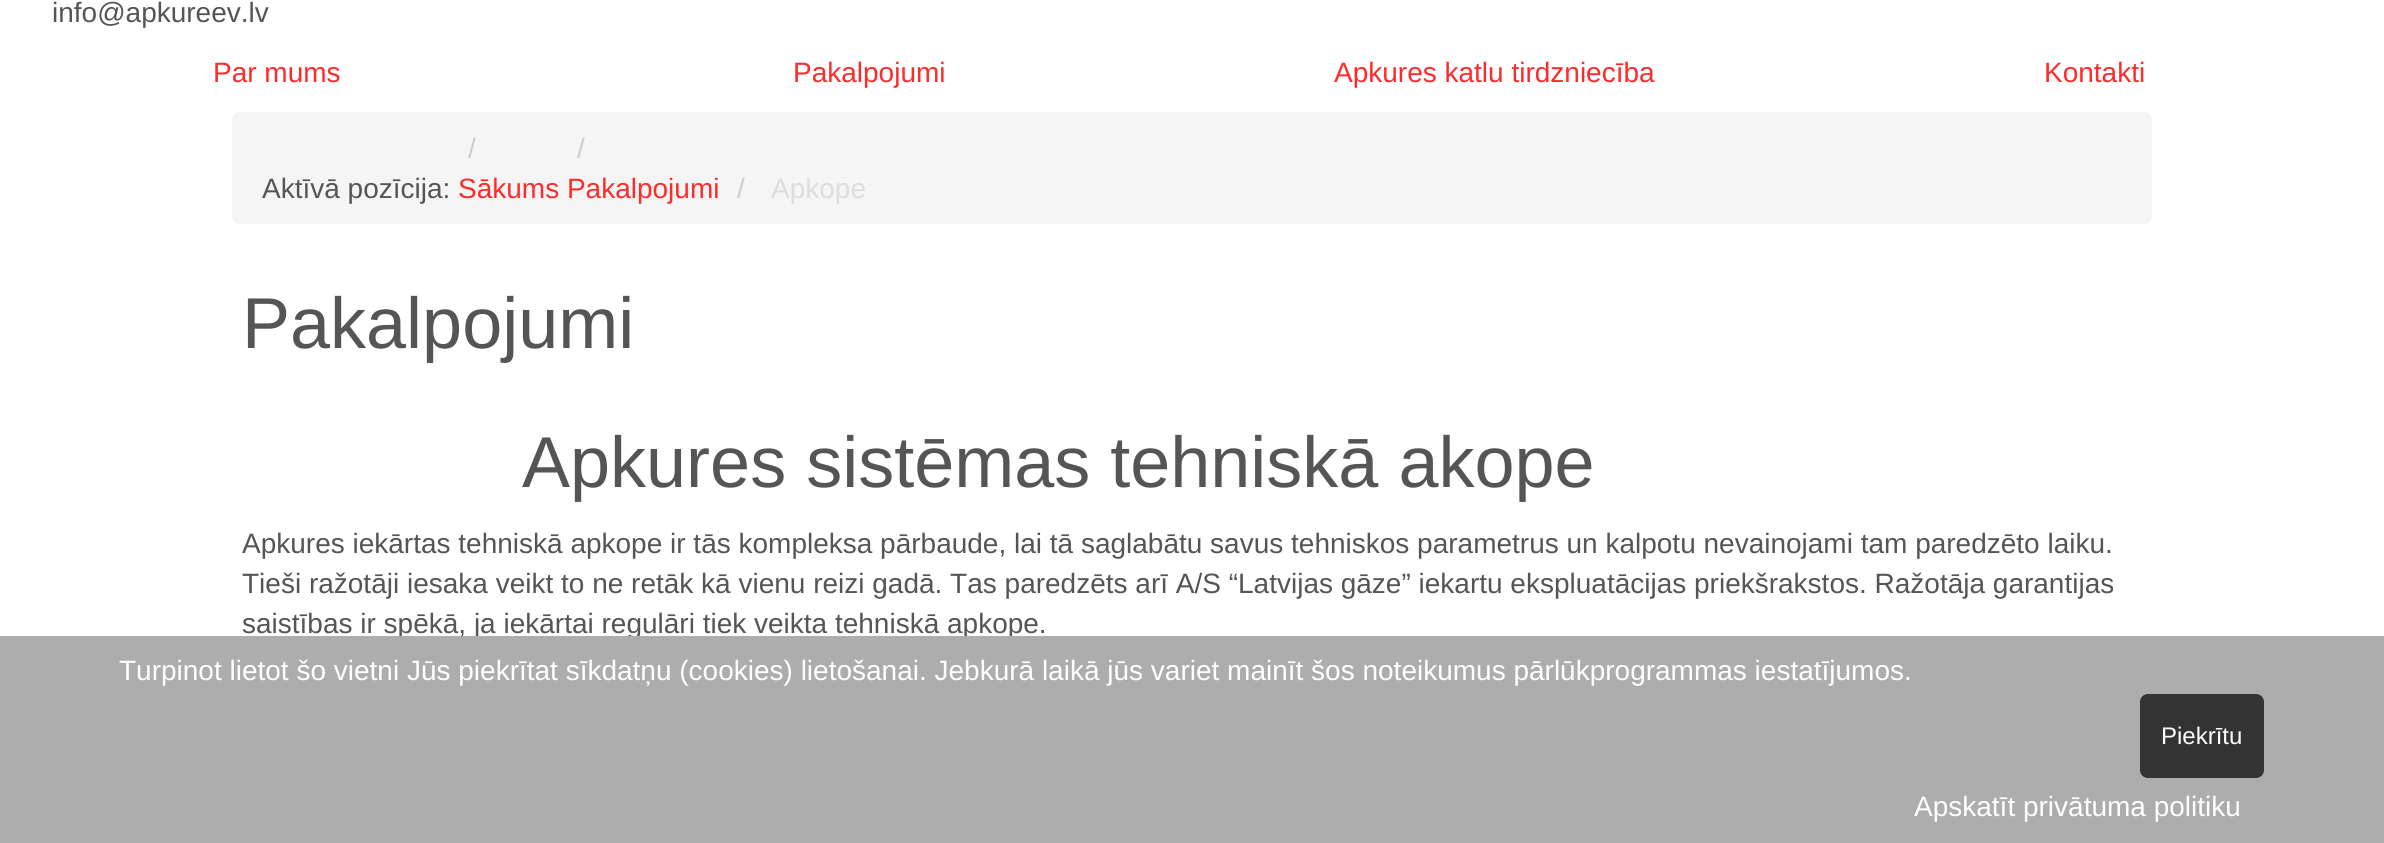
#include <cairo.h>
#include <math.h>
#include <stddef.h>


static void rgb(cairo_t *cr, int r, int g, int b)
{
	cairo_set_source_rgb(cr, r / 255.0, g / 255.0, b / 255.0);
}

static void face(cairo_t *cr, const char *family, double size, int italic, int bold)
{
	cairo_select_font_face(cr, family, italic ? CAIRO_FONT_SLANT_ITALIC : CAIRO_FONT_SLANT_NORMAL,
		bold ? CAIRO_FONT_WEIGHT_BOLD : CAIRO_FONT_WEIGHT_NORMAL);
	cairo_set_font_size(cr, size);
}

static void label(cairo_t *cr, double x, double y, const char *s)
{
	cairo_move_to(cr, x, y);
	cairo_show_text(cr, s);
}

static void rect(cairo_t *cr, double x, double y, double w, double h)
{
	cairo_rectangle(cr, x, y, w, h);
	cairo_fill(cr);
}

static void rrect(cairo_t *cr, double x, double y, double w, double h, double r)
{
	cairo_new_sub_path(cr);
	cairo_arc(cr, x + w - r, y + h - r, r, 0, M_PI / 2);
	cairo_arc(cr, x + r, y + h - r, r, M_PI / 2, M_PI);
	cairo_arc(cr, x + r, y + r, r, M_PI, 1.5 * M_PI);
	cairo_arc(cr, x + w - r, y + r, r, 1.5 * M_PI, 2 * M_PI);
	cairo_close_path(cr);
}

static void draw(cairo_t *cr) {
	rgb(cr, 255, 255, 255);
	cairo_paint(cr);
	face(cr, "Liberation Sans", 28, 0, 0);
	rgb(cr, 85, 85, 85);
	label(cr, 52, 22, "info@apkureev.lv");
	rgb(cr, 255, 42, 42);
	label(cr, 213, 82, "Par mums");
	label(cr, 793, 82, "Pakalpojumi");
	label(cr, 1334, 82, "Apkures katlu tirdzniecība");
	label(cr, 2044, 82, "Kontakti");
	rgb(cr, 245, 245, 245);
	rrect(cr, 232, 112, 1920, 112, 8);
	cairo_fill(cr);
	rgb(cr, 204, 204, 204);
	label(cr, 468, 158, "/");
	rgb(cr, 255, 42, 42);
	label(cr, 458, 198, "Sākums Pakalpojumi");
	rgb(cr, 204, 204, 204);
	label(cr, 577, 158, "/");
	rgb(cr, 85, 85, 85);
	label(cr, 262, 198, "Aktīvā pozīcija:");
	rgb(cr, 204, 204, 204);
	label(cr, 737, 198, "/");
	rgb(cr, 221, 221, 221);
	label(cr, 771, 198, "Apkope");
	face(cr, "Liberation Sans", 72, 0, 0);
	rgb(cr, 85, 85, 85);
	label(cr, 242, 348, "Pakalpojumi");
	label(cr, 522, 487, "Apkures sistēmas tehniskā akope");
	face(cr, "Liberation Sans", 28, 0, 0);
	label(cr, 242, 553, "Apkures iekārtas tehniskā apkope ir tās kompleksa pārbaude, lai tā saglabātu savus tehniskos parametrus un kalpotu nevainojami tam paredzēto laiku.");
	label(cr, 242, 593, "Tieši ražotāji iesaka veikt to ne retāk kā vienu reizi gadā. Tas paredzēts arī A/S “Latvijas gāze” iekartu ekspluatācijas priekšrakstos. Ražotāja garantijas");
	label(cr, 242, 633, "saistības ir spēkā, ja iekārtai regulāri tiek veikta tehniskā apkope.");
	rgb(cr, 173, 173, 173);
	rect(cr, 0, 636, 2384, 207);
	rgb(cr, 255, 255, 255);
	label(cr, 119, 680, "Turpinot lietot šo vietni Jūs piekrītat sīkdatņu (cookies) lietošanai. Jebkurā laikā jūs variet mainīt šos noteikumus pārlūkprogrammas iestatījumos.");
	rgb(cr, 51, 51, 51);
	rrect(cr, 2140, 694, 124, 84, 8);
	cairo_fill(cr);
	face(cr, "Liberation Sans", 24, 0, 0);
	rgb(cr, 255, 255, 255);
	label(cr, 2161, 744, "Piekrītu");
	face(cr, "Liberation Sans", 28, 0, 0);
	label(cr, 1914, 816, "Apskatīt privātuma politiku");
}

int main(void) {
	cairo_surface_t *surface = cairo_image_surface_create(CAIRO_FORMAT_RGB24, 2384, 843);
	cairo_t *cr = cairo_create(surface);
	cairo_font_options_t *options = cairo_font_options_create();
	cairo_font_options_set_hint_metrics(options, CAIRO_HINT_METRICS_OFF);
	cairo_font_options_set_hint_style(options, CAIRO_HINT_STYLE_NONE);
	cairo_set_font_options(cr, options);
	cairo_set_miter_limit(cr, 4);
	draw(cr);
	cairo_surface_write_to_png(surface, "render.png");
	cairo_font_options_destroy(options);
	cairo_destroy(cr);
	cairo_surface_destroy(surface);
	return 0;
}
